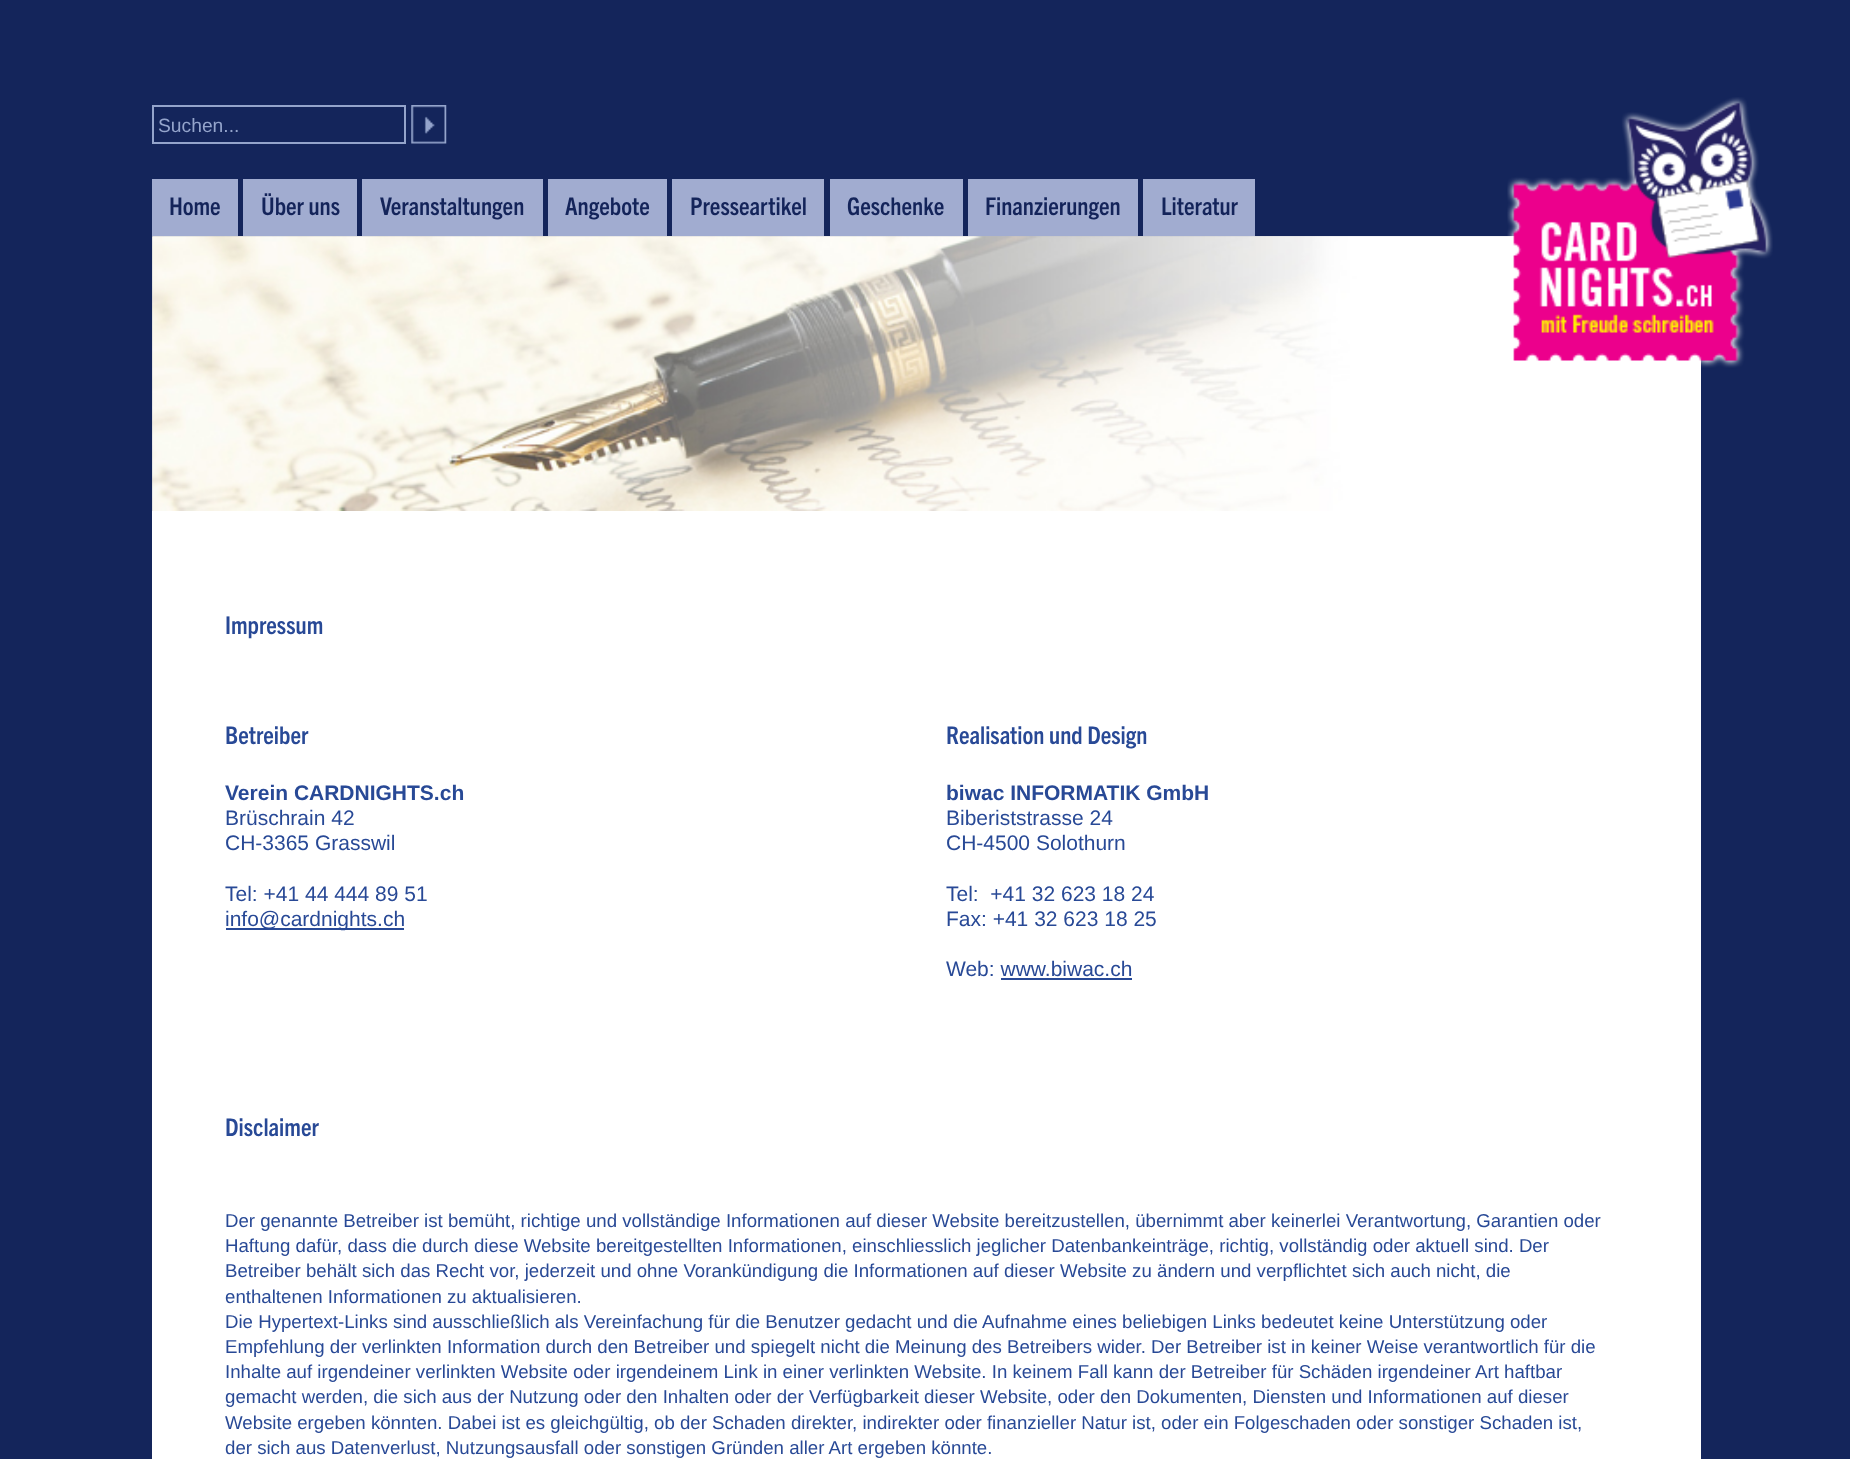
<!DOCTYPE html>
<meta charset="utf-8">
<style>body { margin: 0 } canvas { display: block }</style>
<canvas id="canvas" width="1850" height="1459"></canvas>
<script type="module">
  const canvas = document.getElementById("canvas");
  const g = canvas.getContext("2d");
  g.miterLimit = 4;
  g.fontKerning = "normal";
  function drawText(s, x, y, [font, color]) {
    g.font = font;
    g.fillStyle = color;
    g.fillText(s, x, y);
  }
  function fillBox(x, y, w, h, color) {
    g.fillStyle = color;
    g.fillRect(x, y, w, h);
  }
  async function drawPicture(src, x, y, w, h) {
    const img = new Image();
    img.src = src;
    await img.decode();
    g.drawImage(img, x, y, w, h);
  }

  const s1 = ["19.25px Liberation Sans", "#94A4CB"];
  const s2 = ["bold 24.5px 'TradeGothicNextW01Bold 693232'", "#14245A"];
  const s3 = ["bold 24.5px 'TradeGothicNextW01Bold 693232'", "#284996"];
  const s4 = ["bold 21px Liberation Sans", "#284996"];
  const s5 = ["21px Liberation Sans", "#284996"];
  const s6 = ["18.67px Liberation Sans", "#284996"];

  fillBox(0, 0, 1850, 1459, "#14255B");
  g.strokeStyle = "#94A4CB";
  g.lineWidth = 2;
  g.strokeRect(153, 106, 252, 37);
  drawText("Suchen...", 158, 132, s1);
  await drawPicture("pic1.png", 411, 105, 36, 39);
  await drawPicture("pic3.png", 152, 236, 1363, 275);
  await drawPicture("pic4.png", 152, 236, 1549, 275);
  await drawPicture("pic2.png", 1507, 97, 266, 271);
  fillBox(152, 179, 86, 57, "#A1ACD0");
  drawText("Home", 169, 215, s2);
  fillBox(243, 179, 114, 57, "#A1ACD0");
  drawText("Über uns", 261, 215, s2);
  fillBox(362, 179, 181, 57, "#A1ACD0");
  drawText("Veranstaltungen", 380, 215, s2);
  fillBox(548, 179, 119, 57, "#A1ACD0");
  drawText("Angebote", 565, 215, s2);
  fillBox(672, 179, 152, 57, "#A1ACD0");
  drawText("Presseartikel", 690, 215, s2);
  fillBox(830, 179, 133, 57, "#A1ACD0");
  drawText("Geschenke", 847, 215, s2);
  fillBox(968, 179, 170, 57, "#A1ACD0");
  drawText("Finanzierungen", 985, 215, s2);
  fillBox(1143, 179, 112, 57, "#A1ACD0");
  drawText("Literatur", 1161, 215, s2);
  fillBox(152, 511, 1549, 948, "#FFFFFF");
  drawText("Impressum", 225, 634, s3);
  drawText("Betreiber", 225, 744, s3);
  drawText("Verein CARDNIGHTS.ch", 225, 800, s4);
  drawText("Brüschrain 42", 225, 825, s5);
  drawText("CH-3365 Grasswil", 225, 850, s5);
  drawText("Tel: +41 44 444 89 51", 225, 901, s5);
  fillBox(226, 928, 178, 2, "#284996");
  drawText("info@cardnights.ch", 225, 926, s5);
  drawText("Realisation und Design", 946, 744, s3);
  drawText("biwac INFORMATIK GmbH", 946, 800, s4);
  drawText("Biberiststrasse 24", 946, 825, s5);
  drawText("CH-4500 Solothurn", 946, 850, s5);
  drawText("Tel:  +41 32 623 18 24", 946, 901, s5);
  drawText("Fax: +41 32 623 18 25", 946, 926, s5);
  drawText("Web: www.biwac.ch", 946, 976, s5);
  fillBox(1001, 978, 131, 2, "#284996");
  drawText("Disclaimer", 225, 1136, s3);
  drawText("Der genannte Betreiber ist bemüht, richtige und vollständige Informationen auf dieser Website bereitzustellen, übernimmt aber keinerlei Verantwortung, Garantien oder", 225, 1227, s6);
  drawText("Haftung dafür, dass die durch diese Website bereitgestellten Informationen, einschliesslich jeglicher Datenbankeinträge, richtig, vollständig oder aktuell sind. Der", 225, 1252, s6);
  drawText("Betreiber behält sich das Recht vor, jederzeit und ohne Vorankündigung die Informationen auf dieser Website zu ändern und verpflichtet sich auch nicht, die", 225, 1277, s6);
  drawText("enthaltenen Informationen zu aktualisieren.", 225, 1303, s6);
  drawText("Die Hypertext-Links sind ausschließlich als Vereinfachung für die Benutzer gedacht und die Aufnahme eines beliebigen Links bedeutet keine Unterstützung oder", 225, 1328, s6);
  drawText("Empfehlung der verlinkten Information durch den Betreiber und spiegelt nicht die Meinung des Betreibers wider. Der Betreiber ist in keiner Weise verantwortlich für die", 225, 1353, s6);
  drawText("Inhalte auf irgendeiner verlinkten Website oder irgendeinem Link in einer verlinkten Website. In keinem Fall kann der Betreiber für Schäden irgendeiner Art haftbar", 225, 1378, s6);
  drawText("gemacht werden, die sich aus der Nutzung oder den Inhalten oder der Verfügbarkeit dieser Website, oder den Dokumenten, Diensten und Informationen auf dieser", 225, 1403, s6);
  drawText("Website ergeben könnten. Dabei ist es gleichgültig, ob der Schaden direkter, indirekter oder finanzieller Natur ist, oder ein Folgeschaden oder sonstiger Schaden ist,", 225, 1429, s6);
  drawText("der sich aus Datenverlust, Nutzungsausfall oder sonstigen Gründen aller Art ergeben könnte.", 225, 1454, s6);
</script>
